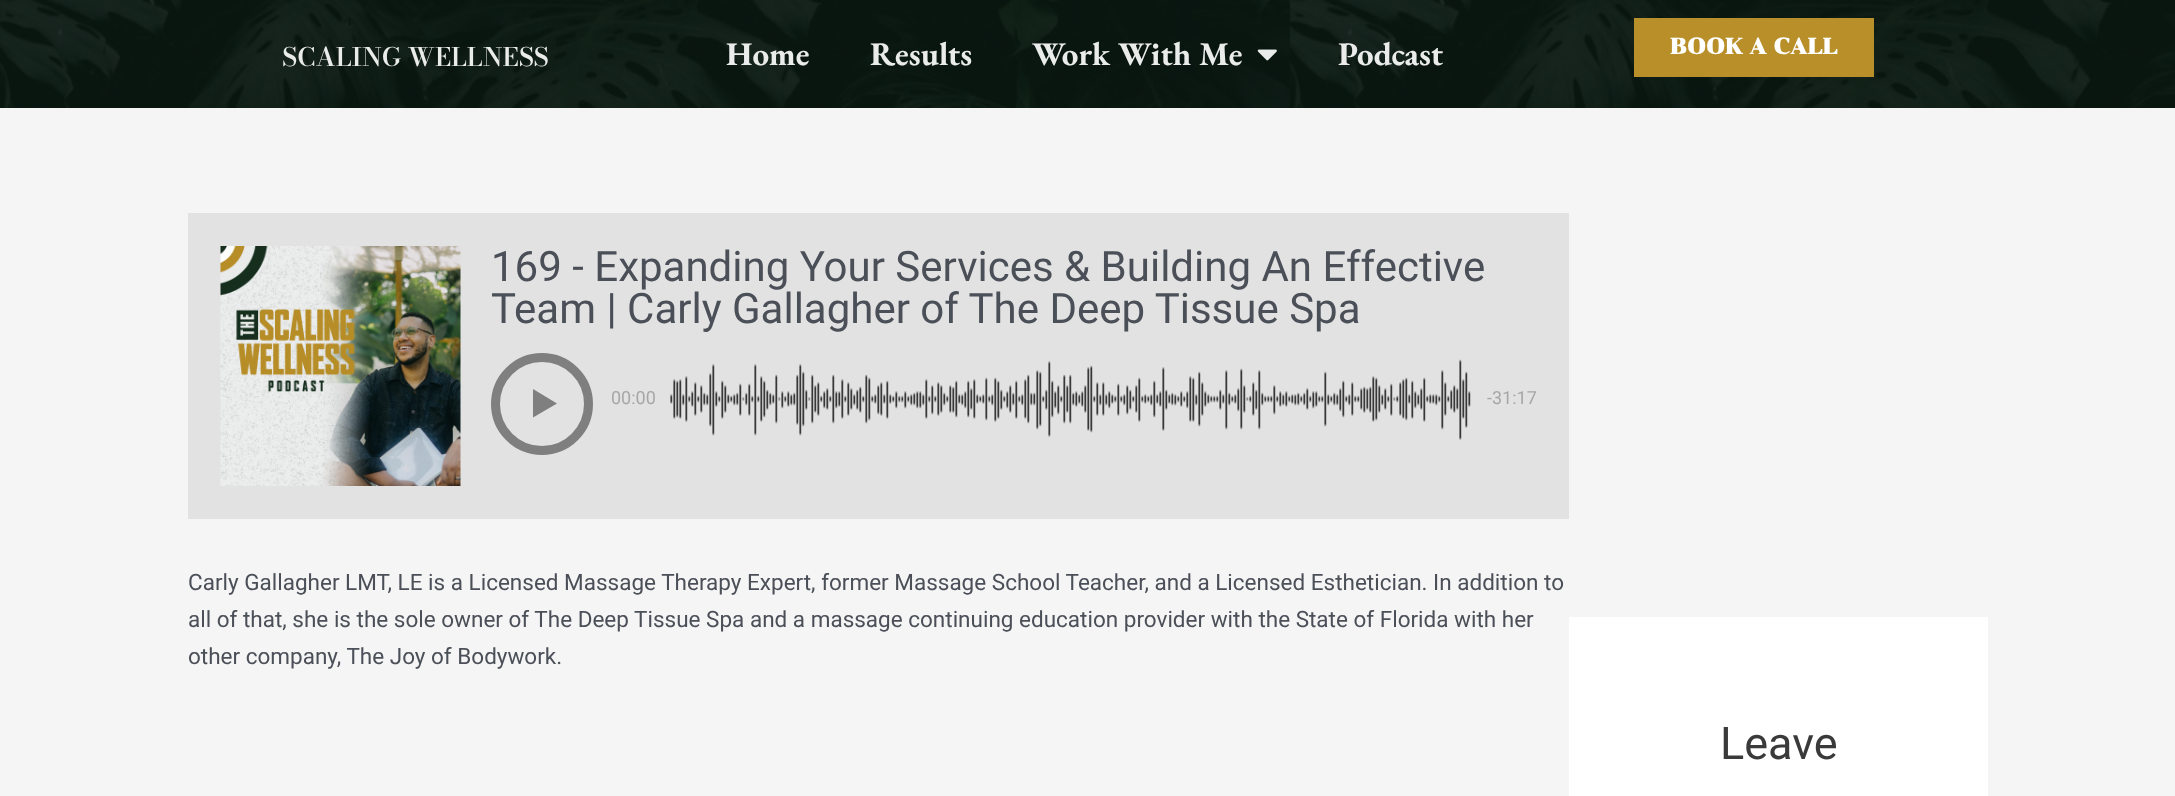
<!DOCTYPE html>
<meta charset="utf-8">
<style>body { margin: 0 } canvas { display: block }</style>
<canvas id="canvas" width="2175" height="796"></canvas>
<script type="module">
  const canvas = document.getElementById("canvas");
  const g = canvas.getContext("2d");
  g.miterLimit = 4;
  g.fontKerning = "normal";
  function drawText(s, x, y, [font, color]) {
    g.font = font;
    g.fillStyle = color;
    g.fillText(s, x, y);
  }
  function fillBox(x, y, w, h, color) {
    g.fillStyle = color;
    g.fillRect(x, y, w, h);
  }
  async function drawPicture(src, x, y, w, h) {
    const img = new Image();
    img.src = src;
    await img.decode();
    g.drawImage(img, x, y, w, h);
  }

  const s1 = ["600 25.5px Bodoni Moda", "#EAECEB"];
  const s2 = ["bold 33px EB Garamond", "#EAECEB"];
  const s3 = ["bold 22.5px Chonburi", "#FFFFFF"];
  const s4 = ["42px Roboto", "#4B4F58"];
  const s5 = ["18px Roboto", "#A7A7A7"];
  const s6 = ["22.5px Roboto", "#4B4F58"];
  const s7 = ["45px Roboto", "#3A3A3A"];

  fillBox(0, 0, 2175, 796, "#F5F5F5");
  await drawPicture("pic1.png", 0, 0, 2175, 108);
  drawText("SCALING WELLNESS", 282, 66, s1);
  drawText("Home", 726, 65, s2);
  drawText("Results", 870, 65, s2);
  drawText("Work With Me", 1032, 65, s2);
  await drawPicture("pic2.png", 1257, 49, 20, 12);
  drawText("Podcast", 1338, 65, s2);
  fillBox(1634, 18, 240, 59, "#B88F28");
  drawText("BOOK A CALL", 1670, 54, s3);
  fillBox(188, 213, 1381, 306, "#E2E2E2");
  await drawPicture("pic3.png", 220, 246, 241, 240);
  drawText("169 - Expanding Your Services & Building An Effective", 491, 281, s4);
  drawText("Team | Carly Gallagher of The Deep Tissue Spa", 491, 323, s4);
  g.beginPath();
  g.arc(542, 404, 46.5, 0, Math.PI * 2);
  g.strokeStyle = "#7F7F7F";
  g.lineWidth = 9;
  g.stroke();
  g.fillStyle = "#7F7F7F";
  g.beginPath();
  g.moveTo(533, 389);
  g.lineTo(557, 403.5);
  g.lineTo(533, 417.5);
  g.closePath();
  g.fill();
  drawText("00:00", 611, 404, s5);
  await drawPicture("pic4.png", 670, 359, 801, 81);
  drawText("-31:17", 1487, 404, s5);
  drawText("Carly Gallagher LMT, LE is a Licensed Massage Therapy Expert, former Massage School Teacher, and a Licensed Esthetician. In addition to", 188, 590, s6);
  drawText("all of that, she is the sole owner of The Deep Tissue Spa and a massage continuing education provider with the State of Florida with her", 188, 627, s6);
  drawText("other company, The Joy of Bodywork.", 188, 664, s6);
  fillBox(1569, 617, 419, 179, "#FFFFFF");
  drawText("Leave", 1720, 759, s7);
</script>
